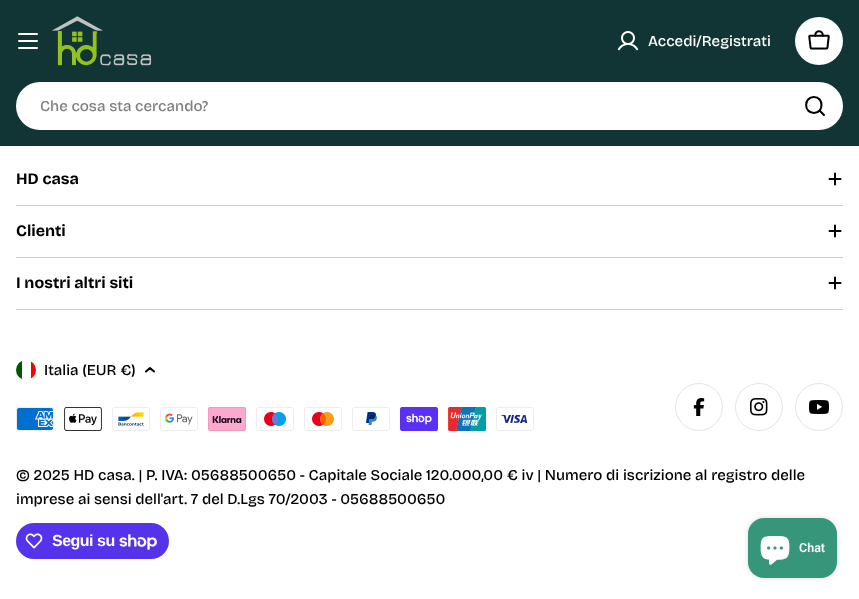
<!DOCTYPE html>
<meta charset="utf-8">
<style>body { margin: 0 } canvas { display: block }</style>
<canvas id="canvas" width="859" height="599"></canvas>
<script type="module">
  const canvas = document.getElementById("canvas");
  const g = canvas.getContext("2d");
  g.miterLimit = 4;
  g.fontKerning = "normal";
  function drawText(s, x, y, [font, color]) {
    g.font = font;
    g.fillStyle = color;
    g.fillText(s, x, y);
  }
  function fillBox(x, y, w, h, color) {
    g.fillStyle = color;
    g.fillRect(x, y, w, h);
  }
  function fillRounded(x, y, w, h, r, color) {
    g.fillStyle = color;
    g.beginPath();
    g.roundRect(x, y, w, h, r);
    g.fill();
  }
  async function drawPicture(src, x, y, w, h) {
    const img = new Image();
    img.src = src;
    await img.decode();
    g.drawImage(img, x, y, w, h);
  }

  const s1 = ["500 15px Bricolage Grotesque", "#FFFFFF"];
  const s2 = ["500 15px Bricolage Grotesque", "#808080"];
  const s3 = ["bold 16px Bricolage Grotesque", "#000000"];
  const s4 = ["500 15px Bricolage Grotesque", "#000000"];
  const s5 = ["bold 16px Liberation Sans", "#FFFFFF"];
  const s6 = ["600 12.5px Roboto", "#FFFFFF"];

  fillBox(0, 0, 859, 599, "#FFFFFF");
  fillBox(0, 0, 859, 146, "#113534");
  fillRounded(18, 40, 20, 2, 1, "#FFFFFF");
  fillRounded(18, 33, 20, 2, 1, "#FFFFFF");
  fillRounded(18, 47, 20, 2, 1, "#FFFFFF");
  await drawPicture("pic1.png", 52, 16, 100, 50);
  await drawPicture("pic2.png", 617, 31, 22, 20);
  drawText("Accedi/Registrati", 648, 46, s1);
  g.beginPath();
  g.arc(819, 41, 24, 0, Math.PI * 2);
  g.fill();
  await drawPicture("pic3.png", 808, 30, 22, 20);
  fillRounded(16, 82, 827, 48, 24, "#FFFFFF");
  drawText("Che cosa sta cercando?", 40, 111, s2);
  g.beginPath();
  g.moveTo(814, 113);
  g.bezierCurveTo(824, 113, 824, 97, 814, 97);
  g.bezierCurveTo(803.5, 97, 803.5, 113, 814, 113);
  g.closePath();
  g.moveTo(819.5, 110.5);
  g.lineTo(824, 115);
  g.strokeStyle = "#000000";
  g.lineWidth = 2;
  g.lineCap = "round";
  g.lineJoin = "round";
  g.stroke();
  fillBox(16, 205, 827, 1, "#CCCCCC");
  drawText("HD casa", 16, 184, s3);
  g.beginPath();
  g.moveTo(829.5, 179);
  g.lineTo(840.5, 179);
  g.moveTo(835, 173.5);
  g.lineTo(835, 184.5);
  g.stroke();
  fillBox(16, 257, 827, 1, "#CCCCCC");
  drawText("Clienti", 16, 236, s3);
  g.beginPath();
  g.moveTo(829.5, 231);
  g.lineTo(840.5, 231);
  g.moveTo(835, 225.5);
  g.lineTo(835, 236.5);
  g.stroke();
  fillBox(16, 309, 827, 1, "#CCCCCC");
  drawText("I nostri altri siti", 16, 288, s3);
  g.beginPath();
  g.moveTo(829.5, 283);
  g.lineTo(840.5, 283);
  g.moveTo(835, 277.5);
  g.lineTo(835, 288.5);
  g.stroke();
  g.save();
  g.beginPath();
  g.roundRect(16, 360, 20, 20, 10);
  g.clip();
  fillBox(16, 360, 6, 20, "#005700");
  fillBox(31, 360, 5, 20, "#FC0000");
  g.restore();
  drawText("Italia (EUR €)", 44, 375, s4);
  g.beginPath();
  g.moveTo(146, 371.5);
  g.lineTo(150, 368);
  g.lineTo(154, 371.5);
  g.stroke();
  await drawPicture("pic4.png", 16, 407, 38, 24);
  await drawPicture("pic5.png", 64, 407, 38, 24);
  await drawPicture("pic6.png", 112, 407, 38, 24);
  await drawPicture("pic7.png", 160, 407, 38, 24);
  await drawPicture("pic8.png", 208, 407, 38, 24);
  await drawPicture("pic9.png", 256, 407, 38, 24);
  await drawPicture("pic10.png", 304, 407, 38, 24);
  await drawPicture("pic11.png", 352, 407, 38, 24);
  await drawPicture("pic12.png", 400, 407, 38, 24);
  await drawPicture("pic13.png", 448, 407, 38, 24);
  await drawPicture("pic14.png", 496, 407, 38, 24);
  g.beginPath();
  g.arc(699, 407, 23.5, 0, Math.PI * 2);
  g.strokeStyle = "#E5E5E5";
  g.lineWidth = 1;
  g.stroke();
  await drawPicture("pic15.png", 693, 398, 12, 18);
  g.beginPath();
  g.arc(759, 407, 23.5, 0, Math.PI * 2);
  g.stroke();
  await drawPicture("pic16.png", 750, 398, 18, 18);
  g.beginPath();
  g.arc(819, 407, 23.5, 0, Math.PI * 2);
  g.stroke();
  await drawPicture("pic17.png", 809, 400, 20, 14);
  drawText("© 2025 HD casa. | P. IVA: 05688500650 - Capitale Sociale 120.000,00 € iv | Numero di iscrizione al registro delle", 16, 480, s4);
  drawText("imprese ai sensi dell'art. 7 del D.Lgs 70/2003 - 05688500650", 16, 504, s4);
  fillRounded(16, 523, 153, 36, 18, "#5433EB");
  await drawPicture("pic18.png", 25, 533, 18, 16);
  g.letterSpacing = "-0.5px";
  drawText("Segui su", 52, 546, s5);
  await drawPicture("pic19.png", 119, 534, 38, 16);
  g.fillStyle = "rgba(0, 0, 0, 0.15)";
  g.filter = "blur(2.5px)";
  g.beginPath();
  g.roundRect(748, 518, 89, 60, 16);
  g.fill();
  g.filter = "none";
  fillRounded(748, 518, 89, 60, 16, "#359679");
  await drawPicture("pic20.png", 760, 536, 30, 29);
  g.letterSpacing = "0px";
  drawText("Chat", 799, 552, s6);
</script>
